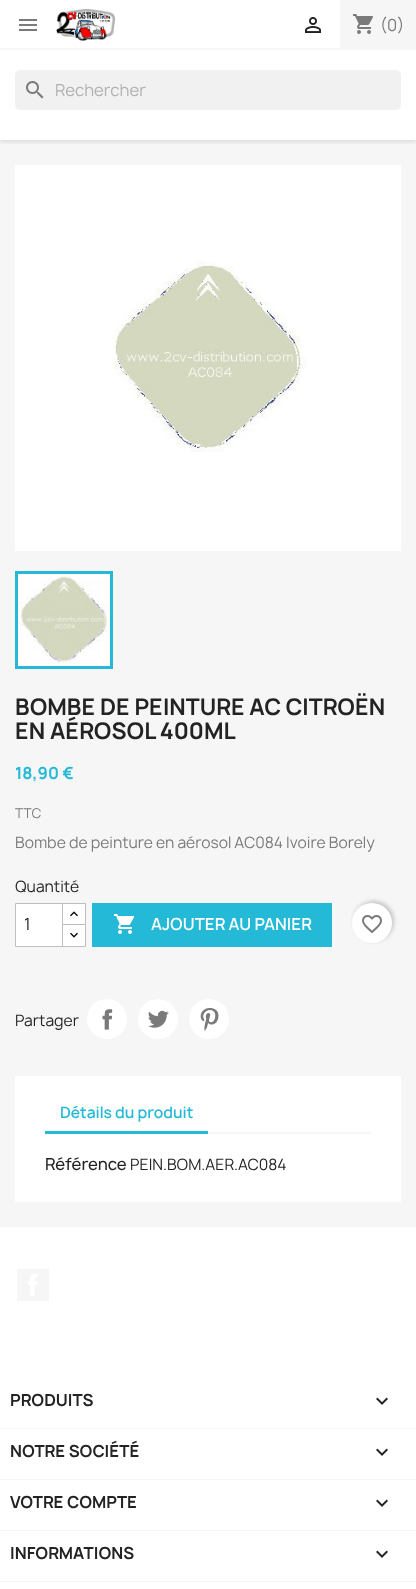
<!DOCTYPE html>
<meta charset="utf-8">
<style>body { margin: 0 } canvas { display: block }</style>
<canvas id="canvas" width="416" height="1589"></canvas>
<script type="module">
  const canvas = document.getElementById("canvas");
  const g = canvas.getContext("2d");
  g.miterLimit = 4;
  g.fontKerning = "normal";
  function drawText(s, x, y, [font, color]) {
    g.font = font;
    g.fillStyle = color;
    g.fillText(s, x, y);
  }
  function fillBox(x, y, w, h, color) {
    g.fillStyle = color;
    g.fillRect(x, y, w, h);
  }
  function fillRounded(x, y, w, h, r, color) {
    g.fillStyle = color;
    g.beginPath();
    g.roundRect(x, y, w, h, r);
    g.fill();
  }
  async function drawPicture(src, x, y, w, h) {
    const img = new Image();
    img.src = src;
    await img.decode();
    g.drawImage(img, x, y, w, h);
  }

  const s1 = ["16px Manrope", "#7A7A7A"];
  const s2 = ["16px Manrope", "#B1B1B1"];
  const s3 = ["bold 22px Manrope", "#232323"];
  const s4 = ["bold 16px Manrope", "#24B9D7"];
  const s5 = ["13px Manrope", "#7A7A7A"];
  const s6 = ["15px Manrope", "#7A7A7A"];
  const s7 = ["15px Manrope", "#232323"];
  const s8 = ["16px Manrope", "#232323"];
  const s9 = ["600 16px Manrope", "#FFFFFF"];
  const s10 = ["600 15px Manrope", "#24B9D7"];
  const s11 = ["500 16px Manrope", "#232323"];
  const s12 = ["bold 16px Manrope", "#232323"];

  fillBox(0, 0, 416, 1589, "#FFFFFF");
  fillBox(0, 140, 416, 1087, "#F6F6F6");
  g.save();
  g.beginPath();
  g.rect(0, 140, 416, 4);
  g.clip();
  g.fillStyle = "rgba(0, 0, 0, 0.11)";
  g.filter = "blur(2.5px)";
  g.beginPath();
  g.rect(0, 2, 416, 140);
  g.fill();
  g.filter = "none";
  g.restore();
  fillBox(0, 48, 416, 2, "#F6F6F6");
  await drawPicture("pic1.png", 19, 19, 18, 12);
  await drawPicture("pic2.png", 56, 9, 59, 32);
  await drawPicture("pic3.png", 305, 17, 16, 16);
  fillBox(340, 0, 76, 48, "#F6F6F6");
  await drawPicture("pic4.png", 353, 14, 20, 20);
  drawText("(0)", 380, 31, s1);
  fillRounded(15, 70, 386, 40, 5, "#F1F1F1");
  await drawPicture("pic5.png", 26, 81, 18, 18);
  drawText("Rechercher", 55, 96, s2);
  fillBox(15, 165, 386, 386, "#FFFFFF");
  await drawPicture("pic6.png", 111, 261, 196, 191);
  g.strokeStyle = "#24B9D7";
  g.lineWidth = 3;
  g.strokeRect(16.5, 572.5, 95, 95);
  await drawPicture("pic7.png", 18, 574, 92, 92);
  drawText("BOMBE DE PEINTURE AC CITROËN", 15, 715, s3);
  drawText("EN AÉROSOL 400ML", 15, 739, s3);
  drawText("18,90 €", 15, 779, s4);
  drawText("TTC", 15, 818, s5);
  drawText("Bombe de peinture en aérosol AC084 Ivoire Borely", 15, 848, s6);
  drawText("Quantité", 15, 892, s7);
  fillBox(63, 904, 22, 20, "#FFFFFF");
  g.strokeStyle = "#BFBFBF";
  g.lineWidth = 1;
  g.strokeRect(62.5, 903.5, 23, 22);
  g.beginPath();
  g.rect(62.5, 924.5, 23, 22);
  g.fill();
  g.stroke();
  g.beginPath();
  g.rect(15.5, 903.5, 47, 43);
  g.fill();
  g.stroke();
  drawText("1", 24, 930, s8);
  await drawPicture("pic8.png", 70, 911, 8, 6);
  await drawPicture("pic9.png", 70, 932, 8, 6);
  fillBox(92, 903, 240, 44, "#24B9D7");
  await drawPicture("pic10.png", 114, 914, 20, 20);
  drawText("AJOUTER AU PANIER", 151, 930, s9);
  g.fillStyle = "rgba(0, 0, 0, 0.2)";
  g.filter = "blur(2px)";
  g.beginPath();
  g.roundRect(354, 901, 40, 40, 20);
  g.fill();
  g.filter = "none";
  g.fillStyle = "#FFFFFF";
  g.beginPath();
  g.arc(372, 923, 20, 0, Math.PI * 2);
  g.fill();
  await drawPicture("pic11.png", 362, 915, 20, 19);
  drawText("Partager", 15, 1026, s7);
  g.fillStyle = "#FFFFFF";
  g.beginPath();
  g.arc(107, 1019, 20, 0, Math.PI * 2);
  g.fill();
  await drawPicture("pic12.png", 102, 1009, 11, 21);
  g.beginPath();
  g.arc(158, 1019, 20, 0, Math.PI * 2);
  g.fill();
  await drawPicture("pic13.png", 148, 1010, 21, 18);
  g.beginPath();
  g.arc(209, 1019, 20, 0, Math.PI * 2);
  g.fill();
  await drawPicture("pic14.png", 200, 1008, 19, 23);
  fillBox(15, 1076, 386, 126, "#FFFFFF");
  fillBox(208, 1132, 163, 2, "#F6F6F6");
  fillBox(45, 1131, 163, 3, "#24B9D7");
  drawText("Détails du produit", 60, 1118, s10);
  drawText("Référence", 45, 1170, s11);
  drawText("PEIN.BOM.AER.AC084", 130, 1170, s7);
  fillBox(17, 1269, 32, 32, "#F6F6F6");
  await drawPicture("pic15.png", 28, 1274, 10, 23);
  fillBox(0, 1428, 416, 1, "#F6F6F6");
  drawText("PRODUITS", 10, 1406, s12);
  await drawPicture("pic16.png", 376, 1397, 12, 8);
  fillBox(0, 1479, 416, 1, "#F6F6F6");
  drawText("NOTRE SOCIÉTÉ", 10, 1457, s12);
  await drawPicture("pic16.png", 376, 1448, 12, 8);
  fillBox(0, 1530, 416, 1, "#F6F6F6");
  drawText("VOTRE COMPTE", 10, 1508, s12);
  await drawPicture("pic16.png", 376, 1499, 12, 8);
  fillBox(0, 1581, 416, 1, "#F6F6F6");
  drawText("INFORMATIONS", 10, 1559, s12);
  await drawPicture("pic16.png", 376, 1550, 12, 8);
</script>
